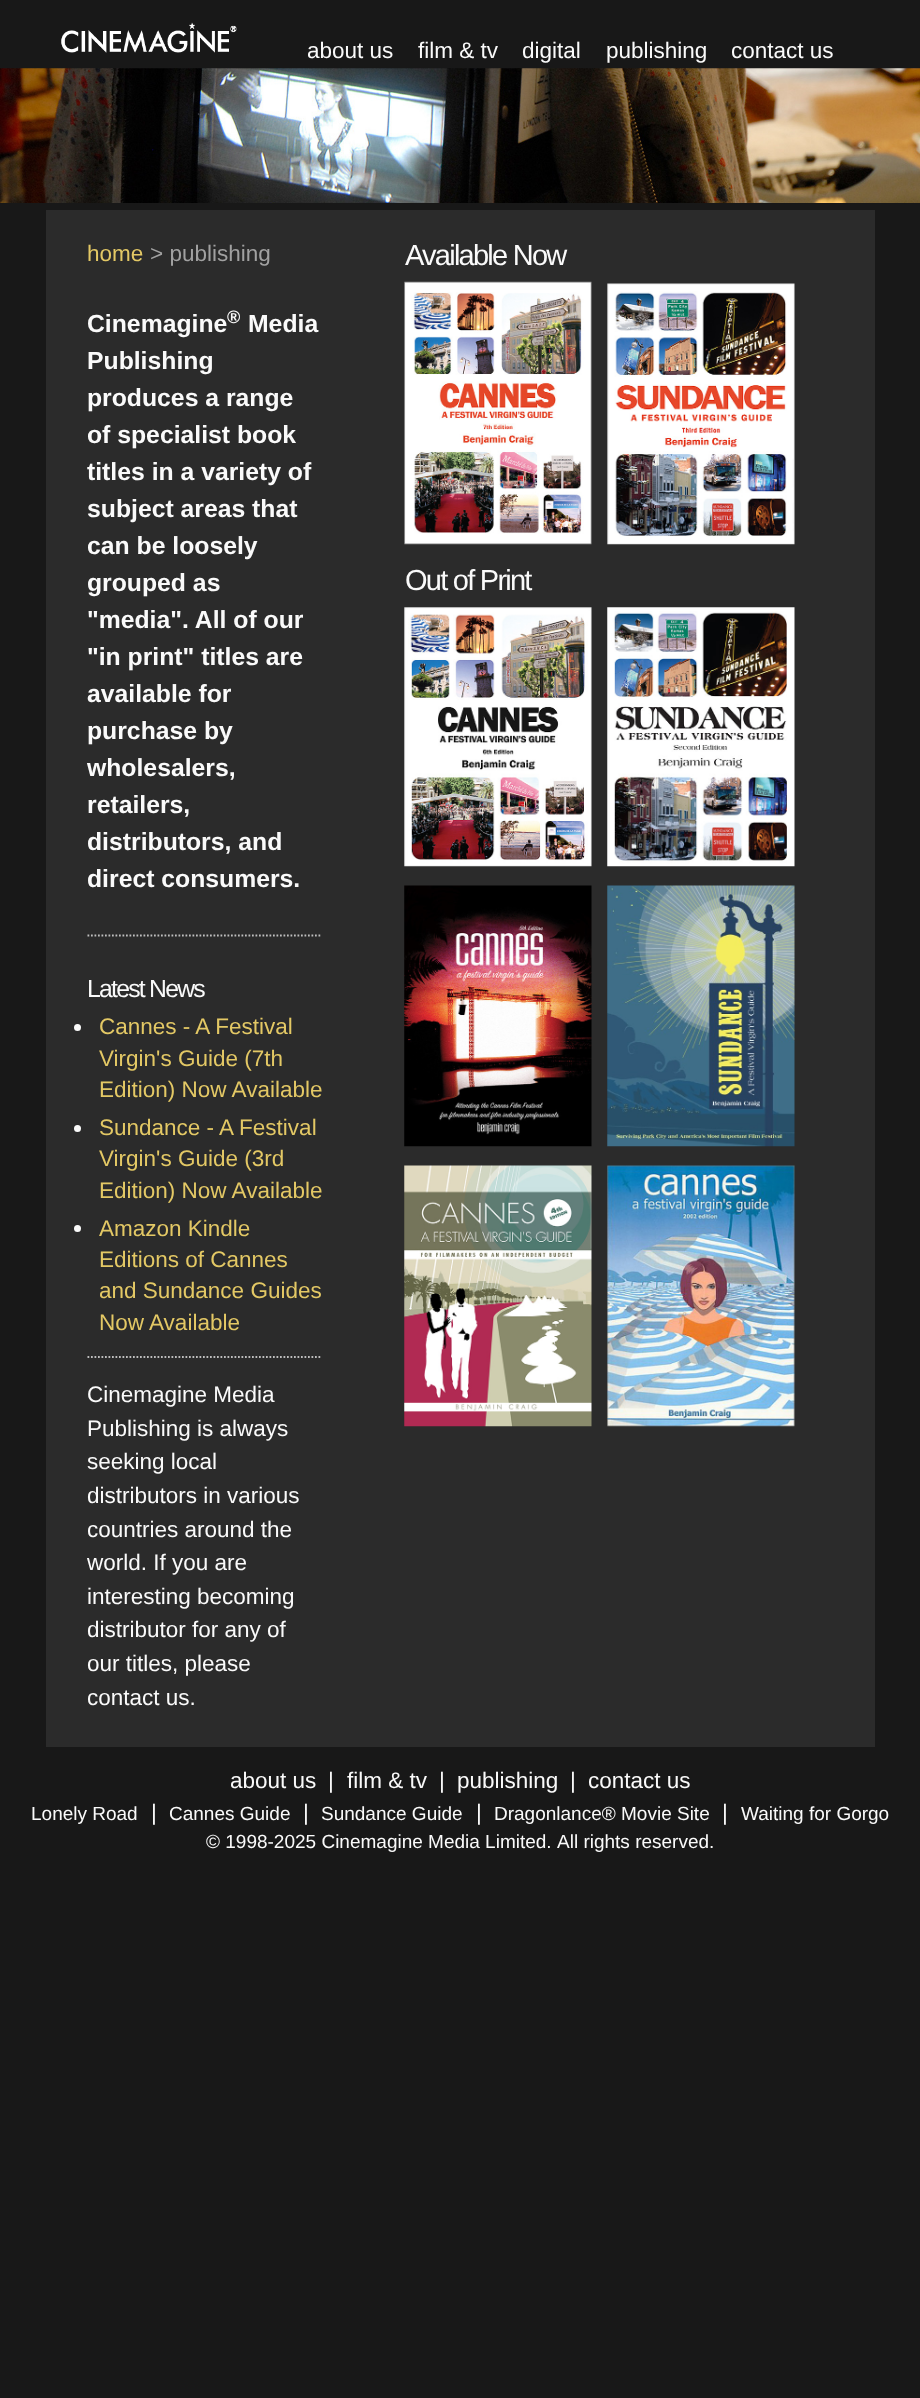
<!DOCTYPE html>
<meta charset="utf-8">
<style>body { margin: 0 } canvas { display: block }</style>
<canvas id="canvas" width="920" height="2398"></canvas>
<script type="module">
  const canvas = document.getElementById("canvas");
  const g = canvas.getContext("2d");
  g.miterLimit = 4;
  g.fontKerning = "normal";
  function drawText(s, x, y, [font, color]) {
    g.font = font;
    g.fillStyle = color;
    g.fillText(s, x, y);
  }
  function fillBox(x, y, w, h, color) {
    g.fillStyle = color;
    g.fillRect(x, y, w, h);
  }
  async function drawPicture(src, x, y, w, h) {
    const img = new Image();
    img.src = src;
    await img.decode();
    g.drawImage(img, x, y, w, h);
  }

  const s1 = ["22.5px Liberation Sans", "#FAFAFA"];
  const s2 = ["22.5px Liberation Sans", "#E3C865"];
  const s3 = ["22.5px Liberation Sans", "#A1A1A1"];
  const s4 = ["bold 24.75px Liberation Sans", "#FAFAFA"];
  const s5 = ["bold 18px Liberation Sans", "#FAFAFA"];
  const s6 = ["24.75px Liberation Sans", "#FAFAFA"];
  const s7 = ["29px Liberation Sans", "#FAFAFA"];
  const s8 = ["19px Liberation Sans", "#FAFAFA"];

  fillBox(0, 0, 920, 2398, "#181818");
  await drawPicture("pic1.png", 61, 22, 176, 31);
  drawText("about us", 307, 58, s1);
  drawText("film & tv", 418, 58, s1);
  drawText("digital", 522, 58, s1);
  drawText("publishing", 606, 58, s1);
  drawText("contact us", 731, 58, s1);
  await drawPicture("pic2.png", 0, 68, 920, 135);
  fillBox(46, 210, 829, 1537, "#2B2B2B");
  drawText("home", 87, 261, s2);
  drawText("> publishing", 150, 261, s3);
  drawText("Cinemagine", 87, 332, s4);
  drawText("®", 227, 323, s5);
  drawText("Media", 248, 332, s4);
  drawText("Publishing", 87, 369, s4);
  drawText("produces a range", 87, 406, s4);
  drawText("of specialist book", 87, 443, s4);
  drawText("titles in a variety of", 87, 480, s4);
  drawText("subject areas that", 87, 517, s4);
  drawText("can be loosely", 87, 554, s4);
  drawText("grouped as", 87, 591, s4);
  drawText("\"media\". All of our", 87, 628, s4);
  drawText("\"in print\" titles are", 87, 665, s4);
  drawText("available for", 87, 702, s4);
  drawText("purchase by", 87, 739, s4);
  drawText("wholesalers,", 87, 776, s4);
  drawText("retailers,", 87, 813, s4);
  drawText("distributors, and", 87, 850, s4);
  drawText("direct consumers.", 87, 887, s4);
  g.beginPath();
  g.moveTo(87.5, 935.5);
  g.lineTo(322, 935.5);
  g.strokeStyle = "#BEBEBE";
  g.lineWidth = 1.8;
  g.setLineDash([1.75, 1.75]);
  g.stroke();
  g.beginPath();
  g.moveTo(87.5, 1357);
  g.lineTo(322, 1357);
  g.stroke();
  g.letterSpacing = "-1.75px";
  drawText("Latest News", 87, 997, s6);
  g.beginPath();
  g.arc(77.5, 1027.5, 3.5, 0, Math.PI * 2);
  g.fill();
  g.letterSpacing = "0px";
  drawText("Cannes - A Festival", 99, 1034, s2);
  drawText("Virgin's Guide (7th", 99, 1066, s2);
  drawText("Edition) Now Available", 99, 1097, s2);
  g.fillStyle = "#FAFAFA";
  g.beginPath();
  g.arc(77.5, 1128.5, 3.5, 0, Math.PI * 2);
  g.fill();
  drawText("Sundance - A Festival", 99, 1135, s2);
  drawText("Virgin's Guide (3rd", 99, 1166, s2);
  drawText("Edition) Now Available", 99, 1198, s2);
  g.fillStyle = "#FAFAFA";
  g.beginPath();
  g.arc(77.5, 1228.5, 3.5, 0, Math.PI * 2);
  g.fill();
  drawText("Amazon Kindle", 99, 1236, s2);
  drawText("Editions of Cannes", 99, 1267, s2);
  drawText("and Sundance Guides", 99, 1298, s2);
  drawText("Now Available", 99, 1330, s2);
  drawText("Cinemagine Media", 87, 1402, s1);
  drawText("Publishing is always", 87, 1436, s1);
  drawText("seeking local", 87, 1469, s1);
  drawText("distributors in various", 87, 1503, s1);
  drawText("countries around the", 87, 1537, s1);
  drawText("world. If you are", 87, 1570, s1);
  drawText("interesting becoming", 87, 1604, s1);
  drawText("distributor for any of", 87, 1637, s1);
  drawText("our titles, please", 87, 1671, s1);
  drawText("contact us.", 87, 1705, s1);
  g.letterSpacing = "-1.75px";
  drawText("Available Now", 405, 265, s7);
  await drawPicture("pic3.png", 404, 281, 188, 264);
  await drawPicture("pic4.png", 607, 283, 188, 262);
  drawText("Out of Print", 405, 590, s7);
  await drawPicture("pic5.png", 404, 607, 188, 260);
  await drawPicture("pic6.png", 607, 607, 188, 260);
  await drawPicture("pic7.png", 404, 885, 188, 262);
  await drawPicture("pic8.png", 607, 885, 188, 262);
  await drawPicture("pic9.png", 404, 1165, 188, 262);
  await drawPicture("pic10.png", 607, 1165, 188, 262);
  g.letterSpacing = "0px";
  drawText("about us", 230, 1788, s1);
  drawText("|", 328, 1788, s1);
  drawText("film & tv", 347, 1788, s1);
  drawText("|", 439, 1788, s1);
  drawText("publishing", 457, 1788, s1);
  drawText("|", 570, 1788, s1);
  drawText("contact us", 588, 1788, s1);
  drawText("Lonely Road", 31, 1820, s8);
  drawText("|", 151, 1820, s1);
  drawText("Cannes Guide", 169, 1820, s8);
  drawText("|", 303, 1820, s1);
  drawText("Sundance Guide", 321, 1820, s8);
  drawText("|", 476, 1820, s1);
  drawText("Dragonlance® Movie Site", 494, 1820, s8);
  drawText("|", 722, 1820, s1);
  drawText("Waiting for Gorgo", 741, 1820, s8);
  drawText("© 1998-2025 Cinemagine Media Limited.", 206, 1848, s8);
  drawText("All rights reserved.", 557, 1848, s8);
</script>
